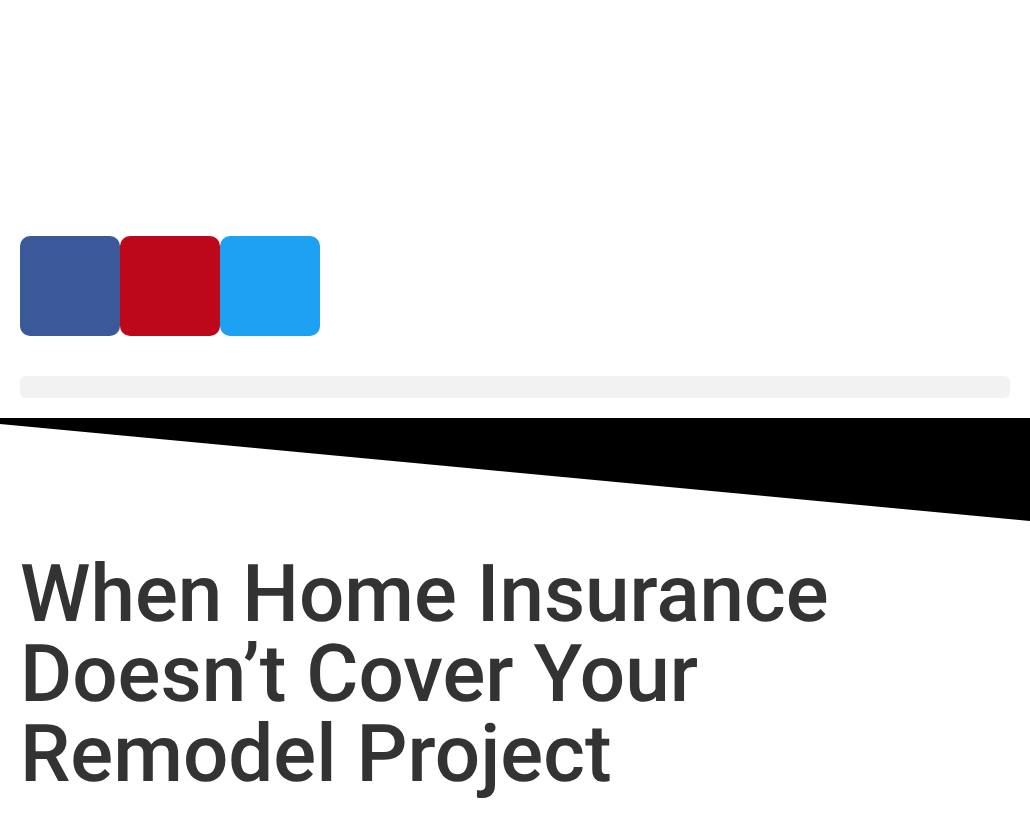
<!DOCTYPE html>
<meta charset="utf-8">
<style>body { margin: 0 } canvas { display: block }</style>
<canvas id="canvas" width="1030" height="828"></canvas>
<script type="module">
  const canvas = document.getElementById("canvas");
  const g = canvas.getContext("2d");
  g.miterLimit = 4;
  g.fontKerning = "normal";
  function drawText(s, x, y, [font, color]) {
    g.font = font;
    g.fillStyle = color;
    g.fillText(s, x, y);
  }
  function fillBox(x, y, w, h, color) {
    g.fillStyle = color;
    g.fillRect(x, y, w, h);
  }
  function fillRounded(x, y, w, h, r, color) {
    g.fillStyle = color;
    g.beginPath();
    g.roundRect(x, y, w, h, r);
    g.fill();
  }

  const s1 = ["500 80px Roboto", "#333333"];

  fillBox(0, 0, 1030, 828, "#FFFFFF");
  fillRounded(20, 236, 100, 100, 10, "#3B5998");
  fillRounded(120, 236, 100, 100, 10, "#BD081C");
  fillRounded(220, 236, 100, 100, 10, "#1DA1F2");
  fillRounded(20, 376, 990, 22, 6, "#F2F2F2");
  g.fillStyle = "#000000";
  g.beginPath();
  g.moveTo(0, 424);
  g.lineTo(0, 418);
  g.lineTo(1030, 418);
  g.lineTo(1030, 521);
  g.closePath();
  g.fill();
  drawText("When Home Insurance", 20, 621, s1);
  drawText("Doesn’t Cover Your", 20, 701, s1);
  drawText("Remodel Project", 20, 781, s1);
</script>
